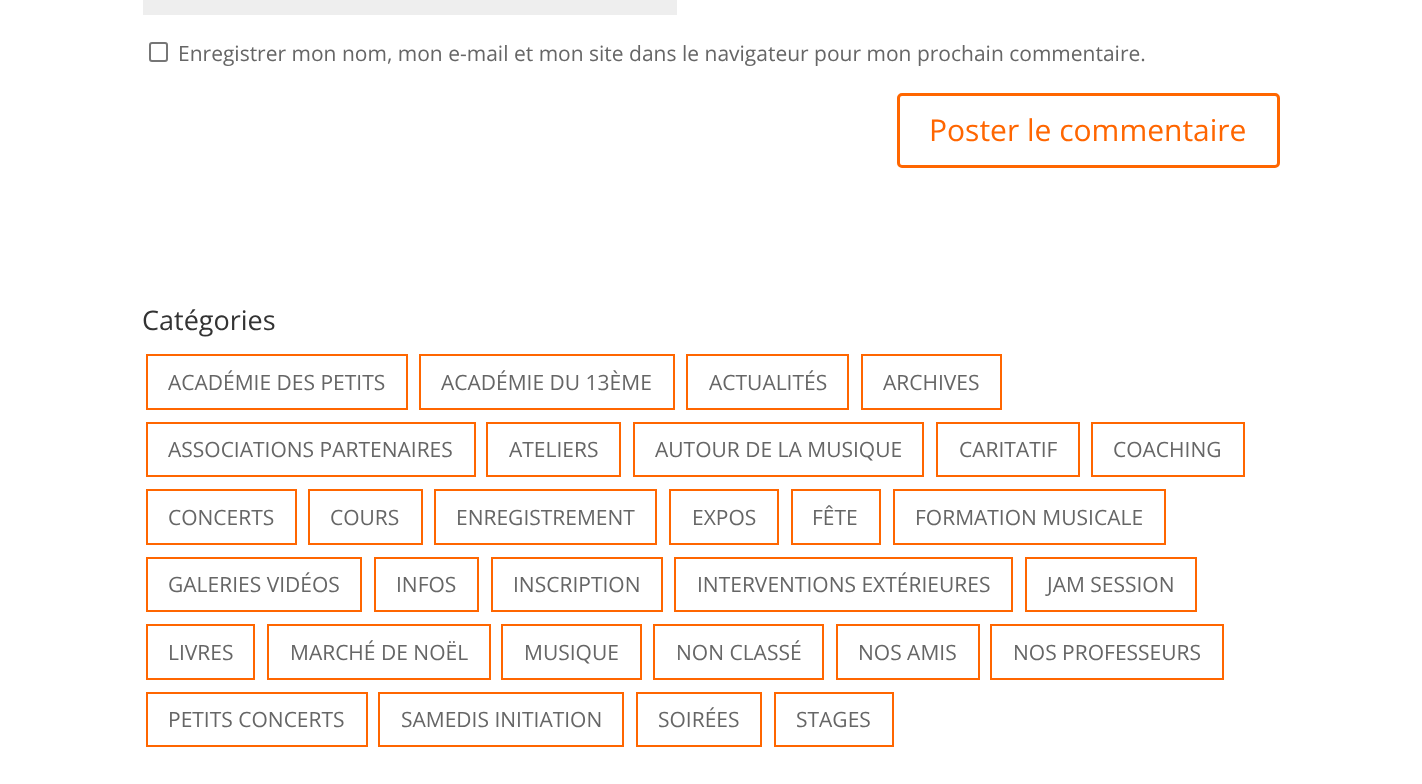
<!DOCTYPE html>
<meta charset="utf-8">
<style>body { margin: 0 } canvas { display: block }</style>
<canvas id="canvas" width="1422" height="784"></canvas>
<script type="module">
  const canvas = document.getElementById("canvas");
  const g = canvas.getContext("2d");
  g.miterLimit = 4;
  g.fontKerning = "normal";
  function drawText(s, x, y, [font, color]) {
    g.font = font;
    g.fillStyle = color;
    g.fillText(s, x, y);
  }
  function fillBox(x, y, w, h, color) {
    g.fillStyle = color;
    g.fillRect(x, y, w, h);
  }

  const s1 = ["21px Open Sans", "#666666"];
  const s2 = ["30px Open Sans", "#FF6600"];
  const s3 = ["27px Open Sans", "#333333"];

  fillBox(0, 0, 1422, 784, "#FFFFFF");
  fillBox(143, 0, 534, 15, "#EEEEEE");
  g.beginPath();
  g.roundRect(150, 43, 17, 18, 2);
  g.strokeStyle = "#767676";
  g.lineWidth = 2;
  g.stroke();
  drawText("Enregistrer mon nom, mon e-mail et mon site dans le navigateur pour mon prochain commentaire.", 178, 61, s1);
  g.beginPath();
  g.roundRect(898.5, 94.5, 380, 72, 3.5);
  g.strokeStyle = "#FF6600";
  g.lineWidth = 3;
  g.stroke();
  drawText("Poster le commentaire", 929, 141, s2);
  drawText("Catégories", 142, 330, s3);
  g.lineWidth = 2;
  g.strokeRect(147, 355, 260, 54);
  drawText("ACADÉMIE DES PETITS", 168, 390, s1);
  g.strokeRect(420, 355, 254, 54);
  drawText("ACADÉMIE DU 13ÈME", 441, 390, s1);
  g.strokeRect(687, 355, 161, 54);
  drawText("ACTUALITÉS", 709, 390, s1);
  g.strokeRect(862, 355, 139, 54);
  drawText("ARCHIVES", 883, 390, s1);
  g.strokeRect(147, 423, 328, 53);
  drawText("ASSOCIATIONS PARTENAIRES", 168, 457, s1);
  g.strokeRect(487, 423, 133, 53);
  drawText("ATELIERS", 509, 457, s1);
  g.strokeRect(634, 423, 289, 53);
  drawText("AUTOUR DE LA MUSIQUE", 655, 457, s1);
  g.strokeRect(937, 423, 142, 53);
  drawText("CARITATIF", 959, 457, s1);
  g.strokeRect(1092, 423, 152, 53);
  drawText("COACHING", 1113, 457, s1);
  g.strokeRect(147, 490, 149, 54);
  drawText("CONCERTS", 168, 525, s1);
  g.strokeRect(309, 490, 113, 54);
  drawText("COURS", 330, 525, s1);
  g.strokeRect(435, 490, 221, 54);
  drawText("ENREGISTREMENT", 456, 525, s1);
  g.strokeRect(670, 490, 108, 54);
  drawText("EXPOS", 692, 525, s1);
  g.strokeRect(792, 490, 88, 54);
  drawText("FÊTE", 812, 525, s1);
  g.strokeRect(894, 490, 271, 54);
  drawText("FORMATION MUSICALE", 915, 525, s1);
  g.strokeRect(147, 558, 214, 53);
  drawText("GALERIES VIDÉOS", 168, 592, s1);
  g.strokeRect(375, 558, 103, 53);
  drawText("INFOS", 396, 592, s1);
  g.strokeRect(492, 558, 170, 53);
  drawText("INSCRIPTION", 513, 592, s1);
  g.strokeRect(675, 558, 337, 53);
  drawText("INTERVENTIONS EXTÉRIEURES", 697, 592, s1);
  g.strokeRect(1026, 558, 170, 53);
  drawText("JAM SESSION", 1047, 592, s1);
  g.strokeRect(147, 625, 107, 54);
  drawText("LIVRES", 168, 660, s1);
  g.strokeRect(268, 625, 222, 54);
  drawText("MARCHÉ DE NOËL", 290, 660, s1);
  g.strokeRect(502, 625, 139, 54);
  drawText("MUSIQUE", 524, 660, s1);
  g.strokeRect(654, 625, 169, 54);
  drawText("NON CLASSÉ", 676, 660, s1);
  g.strokeRect(837, 625, 142, 54);
  drawText("NOS AMIS", 858, 660, s1);
  g.strokeRect(991, 625, 232, 54);
  drawText("NOS PROFESSEURS", 1013, 660, s1);
  g.strokeRect(147, 693, 220, 53);
  drawText("PETITS CONCERTS", 168, 727, s1);
  g.strokeRect(379, 693, 244, 53);
  drawText("SAMEDIS INITIATION", 401, 727, s1);
  g.strokeRect(637, 693, 124, 53);
  drawText("SOIRÉES", 658, 727, s1);
  g.strokeRect(775, 693, 118, 53);
  drawText("STAGES", 796, 727, s1);
</script>
